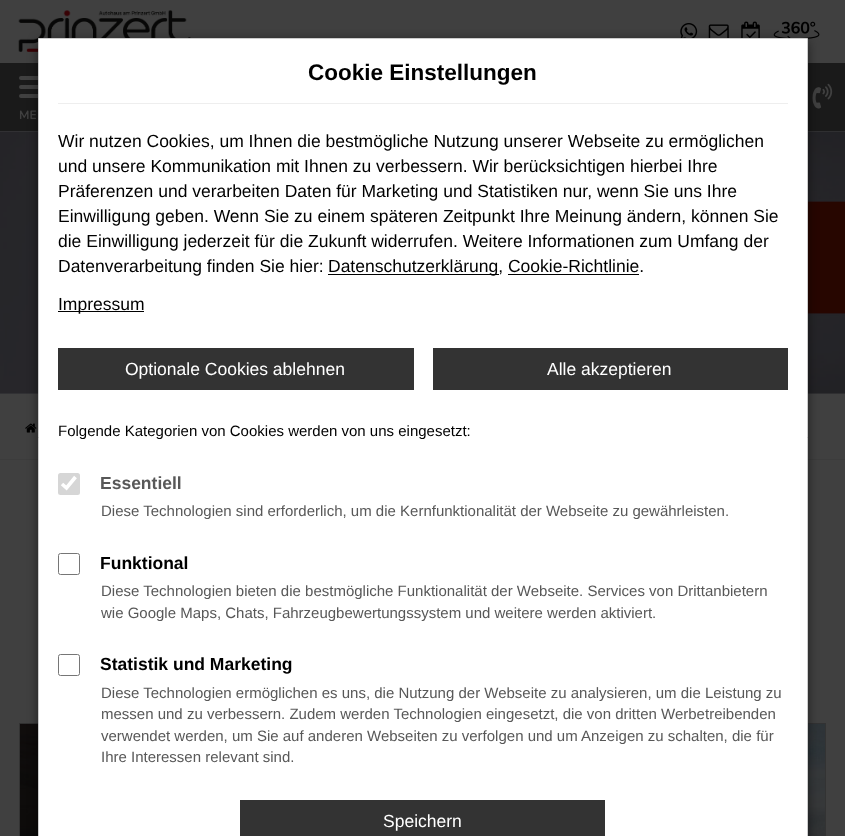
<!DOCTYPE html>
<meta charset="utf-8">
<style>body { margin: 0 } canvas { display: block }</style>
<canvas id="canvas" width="845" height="836"></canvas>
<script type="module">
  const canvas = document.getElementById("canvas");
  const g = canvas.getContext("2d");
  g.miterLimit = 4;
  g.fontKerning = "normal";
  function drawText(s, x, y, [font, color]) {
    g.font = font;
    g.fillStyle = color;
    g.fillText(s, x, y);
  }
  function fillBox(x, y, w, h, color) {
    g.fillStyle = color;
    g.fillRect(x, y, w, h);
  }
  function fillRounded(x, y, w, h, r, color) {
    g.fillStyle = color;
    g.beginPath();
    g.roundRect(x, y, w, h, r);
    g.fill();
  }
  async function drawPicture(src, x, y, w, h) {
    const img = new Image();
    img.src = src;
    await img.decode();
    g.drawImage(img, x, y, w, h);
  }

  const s1 = ["200 12px Nunito", "#404040"];
  const s2 = ["bold 22.5px Liberation Sans", "#000000"];
  const s3 = ["17.5px Liberation Sans", "#000000"];
  const s4 = ["17.5px Liberation Sans", "#FFFFFF"];
  const s5 = ["15px Liberation Sans", "#000000"];
  const s6 = ["bold 17.5px Liberation Sans", "#585858"];
  const s7 = ["15px Liberation Sans", "#585858"];
  const s8 = ["bold 17.5px Liberation Sans", "#000000"];

  fillBox(0, 0, 845, 836, "#404040");
  await drawPicture("pic1.png", 18, 10, 173, 42);
  await drawPicture("pic2.png", 680, 23, 18, 15);
  await drawPicture("pic3.png", 708, 24, 21, 14);
  await drawPicture("pic4.png", 741, 21, 19, 17);
  await drawPicture("pic5.png", 773, 21, 47, 18);
  fillBox(0, 63, 845, 68, "#1A1A1A");
  await drawPicture("pic6.png", 812, 83, 21, 26);
  fillRounded(19, 85, 37, 4, 2, "#404040");
  fillRounded(19, 76, 37, 4, 2, "#404040");
  fillRounded(19, 94, 37, 4, 2, "#404040");
  drawText("ME", 19, 119, s1);
  await drawPicture("pic7.png", 0, 131, 845, 263);
  fillBox(0, 459, 845, 1, "#3C3C3C");
  await drawPicture("pic8.png", 25, 423, 12, 10);
  g.strokeStyle = "#333333";
  g.strokeRect(19.5, 723.5, 806, 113);
  await drawPicture("pic9.png", 20, 723, 805, 113);
  g.fillStyle = "rgba(0, 0, 0, 0.5)";
  g.filter = "blur(5.5px)";
  g.beginPath();
  g.rect(38, 41, 770, 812);
  g.fill();
  g.filter = "none";
  g.fillStyle = "#FFFFFF";
  g.beginPath();
  g.rect(38.5, 38.5, 769, 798);
  g.fill();
  g.strokeStyle = "#CCCCCC";
  g.stroke();
  fillBox(58, 103, 730, 1, "#EEEEEE");
  drawText("Cookie Einstellungen", 308, 80, s2);
  drawText("Wir nutzen Cookies, um Ihnen die bestmögliche Nutzung unserer Webseite zu ermöglichen", 58, 147, s3);
  drawText("und unsere Kommunikation mit Ihnen zu verbessern. Wir berücksichtigen hierbei Ihre", 58, 172, s3);
  drawText("Präferenzen und verarbeiten Daten für Marketing und Statistiken nur, wenn Sie uns Ihre", 58, 197, s3);
  drawText("Einwilligung geben. Wenn Sie zu einem späteren Zeitpunkt Ihre Meinung ändern, können Sie", 58, 222, s3);
  drawText("die Einwilligung jederzeit für die Zukunft widerrufen. Weitere Informationen zum Umfang der", 58, 247, s3);
  drawText("Datenverarbeitung finden Sie hier:", 58, 272, s3);
  fillBox(328, 274, 171, 1, "#000000");
  drawText("Datenschutzerklärung, Cookie-Richtlinie.", 328, 272, s3);
  fillBox(508, 274, 131, 1, "#000000");
  fillBox(58, 311, 86, 1, "#000000");
  drawText("Impressum", 58, 310, s3);
  fillBox(58, 348, 356, 42, "#333333");
  drawText("Optionale Cookies ablehnen", 125, 375, s4);
  fillBox(433, 348, 355, 42, "#333333");
  drawText("Alle akzeptieren", 547, 375, s4);
  drawText("Folgende Kategorien von Cookies werden von uns eingesetzt:", 58, 436, s5);
  fillRounded(58, 473, 22, 22, 2.5, "#D6D6D6");
  g.beginPath();
  g.moveTo(62, 484);
  g.lineTo(66.5, 488);
  g.lineTo(75.5, 477);
  g.strokeStyle = "#FFFFFF";
  g.lineWidth = 3.6;
  g.stroke();
  drawText("Essentiell", 100, 489, s6);
  drawText("Diese Technologien sind erforderlich, um die Kernfunktionalität der Webseite zu gewährleisten.", 101, 516, s7);
  g.beginPath();
  g.roundRect(58.5, 553.5, 21, 21, 2);
  g.strokeStyle = "#767676";
  g.lineWidth = 1;
  g.stroke();
  drawText("Funktional", 100, 569, s8);
  drawText("Diese Technologien bieten die bestmögliche Funktionalität der Webseite. Services von Drittanbietern", 101, 596, s7);
  drawText("wie Google Maps, Chats, Fahrzeugbewertungssystem und weitere werden aktiviert.", 101, 618, s7);
  g.beginPath();
  g.roundRect(58.5, 654.5, 21, 21, 2);
  g.stroke();
  drawText("Statistik und Marketing", 100, 670, s8);
  drawText("Diese Technologien ermöglichen es uns, die Nutzung der Webseite zu analysieren, um die Leistung zu", 101, 698, s7);
  drawText("messen und zu verbessern. Zudem werden Technologien eingesetzt, die von dritten Werbetreibenden", 101, 719, s7);
  drawText("verwendet werden, um Sie auf anderen Webseiten zu verfolgen und um Anzeigen zu schalten, die für", 101, 741, s7);
  drawText("Ihre Interessen relevant sind.", 101, 762, s7);
  fillBox(240, 800, 365, 36, "#333333");
  drawText("Speichern", 383, 827, s4);
</script>
